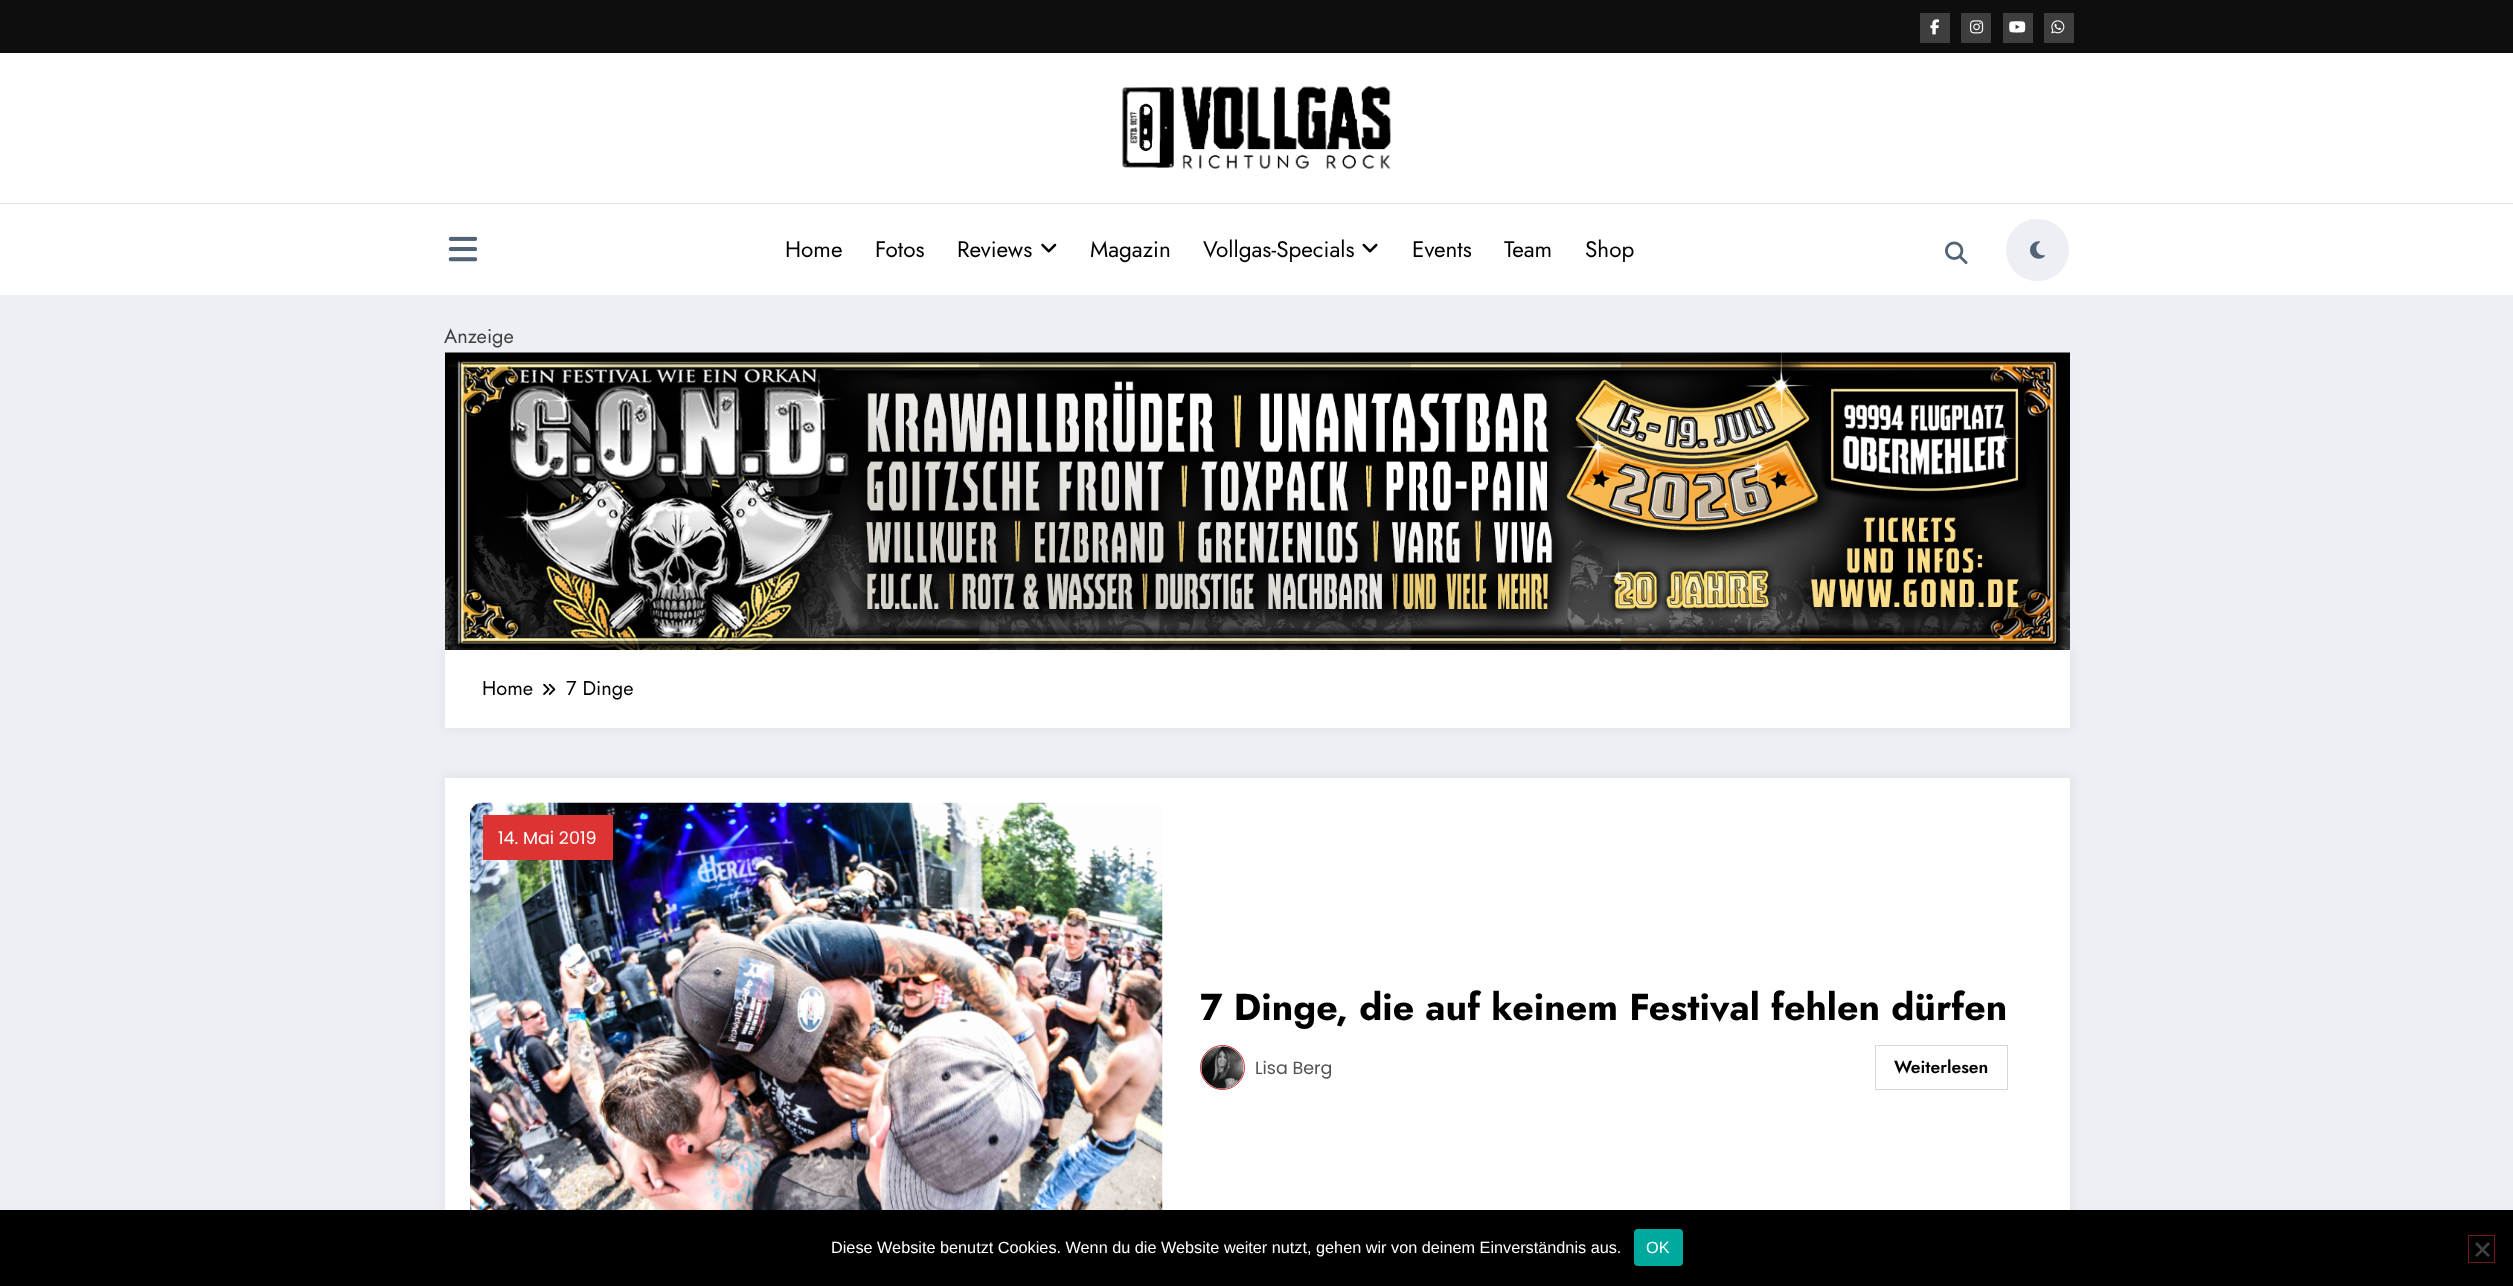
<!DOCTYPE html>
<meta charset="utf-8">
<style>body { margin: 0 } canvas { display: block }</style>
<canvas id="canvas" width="2513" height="1286"></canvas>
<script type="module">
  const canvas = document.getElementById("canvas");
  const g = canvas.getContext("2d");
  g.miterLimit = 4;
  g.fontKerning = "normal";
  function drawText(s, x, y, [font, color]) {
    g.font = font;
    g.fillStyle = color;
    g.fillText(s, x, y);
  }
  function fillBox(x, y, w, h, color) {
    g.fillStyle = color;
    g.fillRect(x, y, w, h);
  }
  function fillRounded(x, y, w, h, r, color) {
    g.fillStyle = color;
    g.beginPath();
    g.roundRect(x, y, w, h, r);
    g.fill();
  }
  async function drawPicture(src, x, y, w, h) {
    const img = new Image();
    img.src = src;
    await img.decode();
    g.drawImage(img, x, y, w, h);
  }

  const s1 = ["22.5px Jost", "#000000"];
  const s2 = ["20px Jost", "#404040"];
  const s3 = ["20px Jost", "#000000"];
  const s4 = ["17.5px Poppins", "#FFFFFF"];
  const s5 = ["bold 37.5px Jost", "#000000"];
  const s6 = ["17.5px Poppins", "#525252"];
  const s7 = ["600 17.5px Jost", "#000000"];
  const s8 = ["16.25px Liberation Sans", "#FFFFFF"];

  fillBox(0, 0, 2513, 1286, "#EEEEF5");
  fillBox(0, 0, 2513, 53, "#0E0E0E");
  fillBox(1920, 13, 30, 30, "#3E3E3E");
  await drawPicture("pic1.png", 1930, 19, 9, 16);
  fillBox(1961, 13, 30, 30, "#3E3E3E");
  await drawPicture("pic2.png", 1970, 20, 14, 14);
  fillBox(2003, 13, 30, 30, "#3E3E3E");
  await drawPicture("pic3.png", 2009, 21, 17, 12);
  fillBox(2044, 13, 30, 30, "#3E3E3E");
  await drawPicture("pic4.png", 2051, 20, 14, 14);
  fillBox(0, 53, 2513, 242, "#FFFFFF");
  await drawPicture("pic5.png", 1122, 85, 269, 84);
  fillBox(0, 203, 2513, 1, "#E1E1E1");
  await drawPicture("pic6.png", 448, 236, 30, 26);
  drawText("Home", 785, 257, s1);
  drawText("Fotos", 875, 257, s1);
  drawText("Reviews", 957, 257, s1);
  await drawPicture("pic7.png", 1041, 243, 16, 10);
  drawText("Magazin", 1090, 257, s1);
  drawText("Vollgas-Specials", 1203, 257, s1);
  await drawPicture("pic8.png", 1362, 243, 16, 10);
  drawText("Events", 1412, 257, s1);
  drawText("Team", 1504, 257, s1);
  drawText("Shop", 1585, 257, s1);
  await drawPicture("pic9.png", 1945, 241, 23, 23);
  fillRounded(2006, 219, 63, 62, 31, "#EEEEF5");
  await drawPicture("pic10.png", 2030, 241, 15, 18);
  drawText("Anzeige", 444, 343, s2);
  await drawPicture("pic11.png", 445, 352, 1625, 298);
  g.fillStyle = "rgba(23, 23, 35, 0.05)";
  g.filter = "blur(5px)";
  g.beginPath();
  g.rect(443, 648, 1630, 82);
  g.fill();
  g.filter = "none";
  fillBox(445, 650, 1625, 78, "#FFFFFF");
  drawText("Home", 482, 695, s3);
  await drawPicture("pic12.png", 543, 683, 13, 12);
  drawText("7 Dinge", 566, 695, s3);
  g.fillStyle = "rgba(23, 23, 35, 0.05)";
  g.filter = "blur(5px)";
  g.beginPath();
  g.rect(443, 775, 1630, 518);
  g.fill();
  g.filter = "none";
  fillBox(445, 778, 1625, 432, "#FFFFFF");
  await drawPicture("pic13.png", 470, 802, 693, 408);
  fillBox(483, 815, 130, 45, "#DD3333");
  drawText("14. Mai 2019", 498, 844, s4);
  drawText("7 Dinge, die auf keinem Festival fehlen dürfen", 1200, 1020, s5);
  g.beginPath();
  g.arc(1222.5, 1067.5, 22, 0, Math.PI * 2);
  g.strokeStyle = "#DD3333";
  g.stroke();
  await drawPicture("pic14.png", 1201, 1046, 43, 43);
  drawText("Lisa Berg", 1255, 1074, s6);
  g.strokeStyle = "#D7D7D7";
  g.strokeRect(1875.5, 1045.5, 132, 44);
  drawText("Weiterlesen", 1894, 1073, s7);
  fillBox(0, 1210, 2513, 76, "#000000");
  drawText("Diese Website benutzt Cookies. Wenn du die Website weiter nutzt, gehen wir von deinem Einverständnis aus.", 831, 1253, s8);
  fillRounded(1634, 1229, 49, 37, 4, "#00A99D");
  drawText("OK", 1646, 1253, s8);
  g.strokeStyle = "#6F1A1A";
  g.strokeRect(2468.5, 1235.5, 26, 27);
  g.fillStyle = "#404040";
  g.beginPath();
  g.moveTo(2488, 1242);
  g.lineTo(2490, 1244);
  g.lineTo(2477, 1257);
  g.lineTo(2475, 1255.5);
  g.closePath();
  g.fill();
  g.beginPath();
  g.moveTo(2475, 1244);
  g.lineTo(2477, 1242);
  g.lineTo(2490, 1255.5);
  g.lineTo(2488, 1257);
  g.closePath();
  g.fill();
</script>
